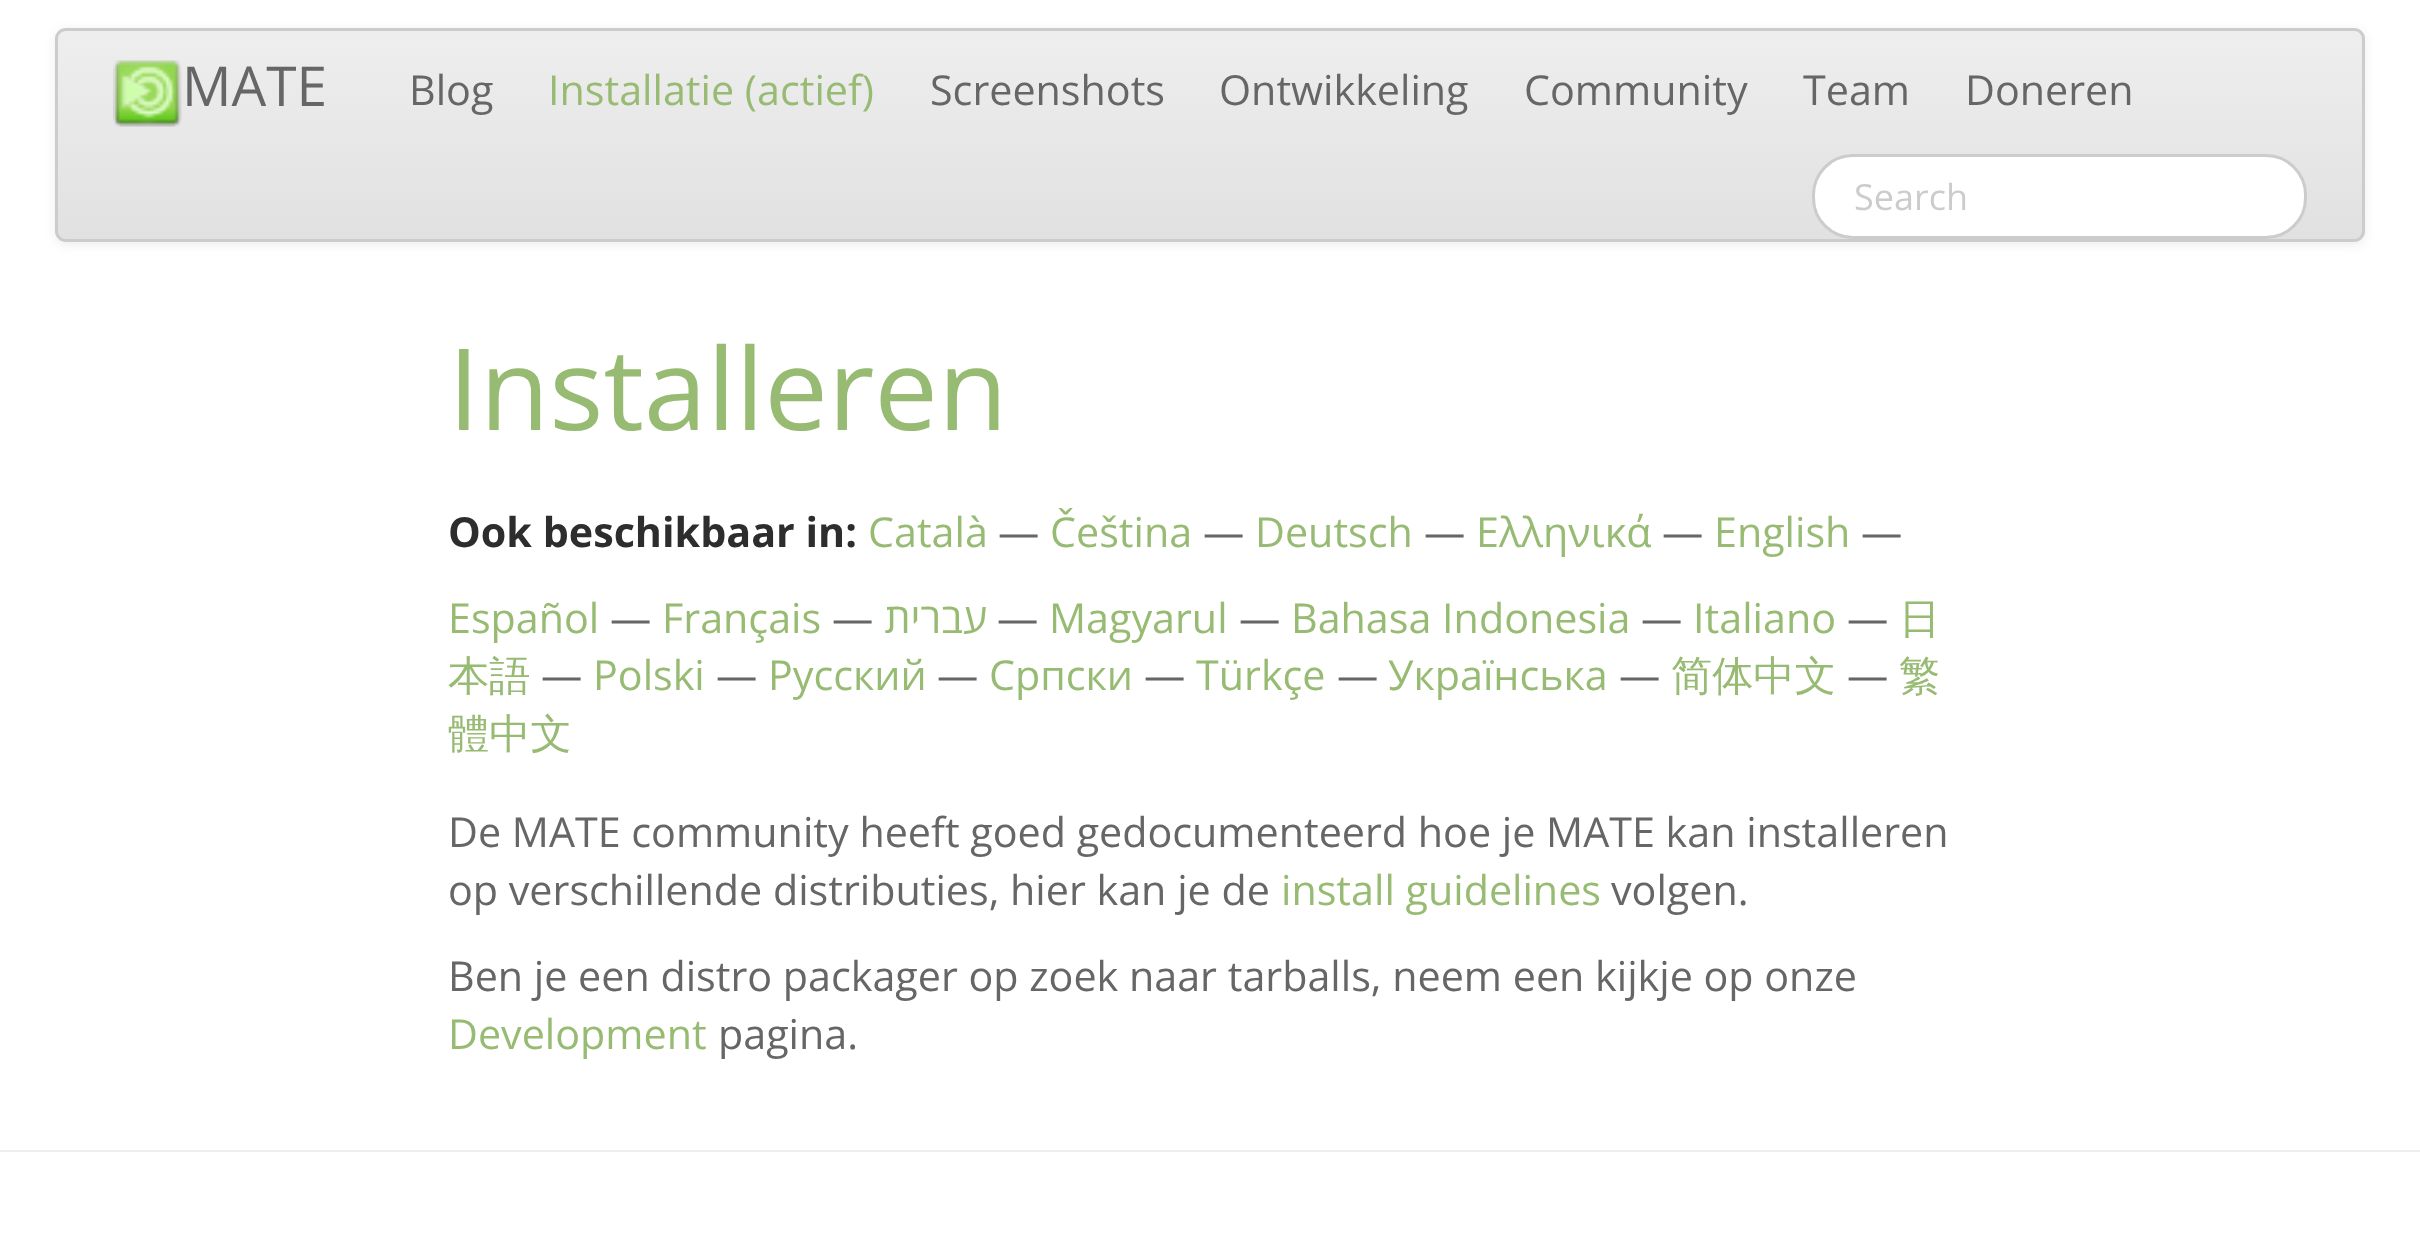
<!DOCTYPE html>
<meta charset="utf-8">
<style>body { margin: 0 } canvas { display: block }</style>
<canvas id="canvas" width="2420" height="1239"></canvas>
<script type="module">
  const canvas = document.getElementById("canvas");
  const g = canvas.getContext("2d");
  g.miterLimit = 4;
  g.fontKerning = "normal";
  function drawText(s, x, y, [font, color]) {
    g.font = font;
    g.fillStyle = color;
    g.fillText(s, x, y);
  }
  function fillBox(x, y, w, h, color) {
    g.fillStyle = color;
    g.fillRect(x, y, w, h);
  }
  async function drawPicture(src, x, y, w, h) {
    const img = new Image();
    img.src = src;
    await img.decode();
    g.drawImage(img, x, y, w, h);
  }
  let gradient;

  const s1 = ["55px Open Sans", "#666666"];
  const s2 = ["41.25px Open Sans", "#666666"];
  const s3 = ["41.25px Open Sans", "#97BB72"];
  const s4 = ["36px Open Sans", "#CCCCCC"];
  const s5 = ["113.5px Open Sans", "#97BB72"];
  const s6 = ["bold 41.25px Open Sans", "#2D2D2D"];
  const s7 = ["500 41.25px WenQuanYi Zen Hei", "#97BB72"];

  fillBox(0, 0, 2420, 1239, "#FFFFFF");
  g.fillStyle = "rgba(0, 0, 0, 0.07)";
  g.filter = "blur(5.5px)";
  g.beginPath();
  g.roundRect(55, 30, 2310, 215, 11);
  g.fill();
  g.filter = "none";
  g.save();
  g.beginPath();
  g.roundRect(55, 28, 2310, 214, 11);
  g.clip();
  gradient = g.createLinearGradient(1210, 30, 1210, 239);
  gradient.addColorStop(0, "#EEEEEE");
  gradient.addColorStop(1, "#E1E1E1");
  g.fillStyle = gradient;
  g.fillRect(55, 30, 2310, 209);
  g.restore();
  g.beginPath();
  g.roundRect(56.5, 29.5, 2307, 211, 9.5);
  g.strokeStyle = "#CCCCCC";
  g.lineWidth = 3;
  g.stroke();
  await drawPicture("pic1.png", 113, 60, 69, 67);
  drawText("MATE", 182, 106, s1);
  drawText("Blog", 409, 105, s2);
  drawText("Installatie (actief)", 548, 105, s3);
  drawText("Screenshots", 930, 105, s2);
  drawText("Ontwikkeling", 1219, 105, s2);
  drawText("Community", 1524, 105, s2);
  drawText("Team", 1803, 105, s2);
  drawText("Doneren", 1965, 105, s2);
  g.fillStyle = "#FFFFFF";
  g.beginPath();
  g.roundRect(1813.5, 155.5, 492, 82, 39.5);
  g.fill();
  g.stroke();
  drawText("Search", 1854, 210, s4);
  drawText("Installeren", 448, 430, s5);
  drawText("Ook beschikbaar in:", 448, 547, s6);
  drawText("Català", 868, 547, s3);
  drawText("—", 998, 547, s2);
  drawText("Čeština", 1050, 547, s3);
  drawText("—", 1203, 547, s2);
  drawText("Deutsch", 1255, 547, s3);
  drawText("—", 1424, 547, s2);
  drawText("Ελληνικά", 1476, 547, s3);
  drawText("—", 1662, 547, s2);
  drawText("English", 1714, 547, s3);
  drawText("—", 1861, 547, s2);
  drawText("Español", 448, 633, s3);
  drawText("—", 610, 633, s2);
  drawText("Français", 662, 633, s3);
  drawText("—", 832, 633, s2);
  g.direction = "rtl";
  drawText("עברית", 987, 633, s3);
  g.direction = "ltr";
  drawText("—", 997, 633, s2);
  drawText("Magyarul", 1049, 633, s3);
  drawText("—", 1239, 633, s2);
  drawText("Bahasa Indonesia", 1291, 633, s3);
  drawText("—", 1641, 633, s2);
  drawText("Italiano", 1693, 633, s3);
  drawText("—", 1847, 633, s2);
  drawText("日", 1899, 633, s7);
  drawText("本語", 448, 690, s7);
  drawText("—", 541, 690, s2);
  drawText("Polski", 593, 690, s3);
  drawText("—", 716, 690, s2);
  drawText("Русский", 768, 690, s3);
  drawText("—", 937, 690, s2);
  drawText("Српски", 989, 690, s3);
  drawText("—", 1144, 690, s2);
  drawText("Türkçe", 1196, 690, s3);
  drawText("—", 1337, 690, s2);
  drawText("Українська", 1388, 690, s3);
  drawText("—", 1619, 690, s2);
  drawText("简体中文", 1671, 690, s7);
  drawText("—", 1847, 690, s2);
  drawText("繁", 1899, 690, s7);
  drawText("體中文", 448, 748, s7);
  drawText("De MATE community heeft goed gedocumenteerd hoe je MATE kan installeren", 448, 847, s2);
  drawText("op verschillende distributies, hier kan je de", 448, 905, s2);
  drawText("install guidelines", 1281, 905, s3);
  drawText("volgen.", 1611, 905, s2);
  drawText("Ben je een distro packager op zoek naar tarballs, neem een kijkje op onze", 448, 991, s2);
  drawText("Development", 448, 1049, s3);
  drawText("pagina.", 718, 1049, s2);
  fillBox(0, 1150, 2420, 2, "#EEEEEE");
</script>
